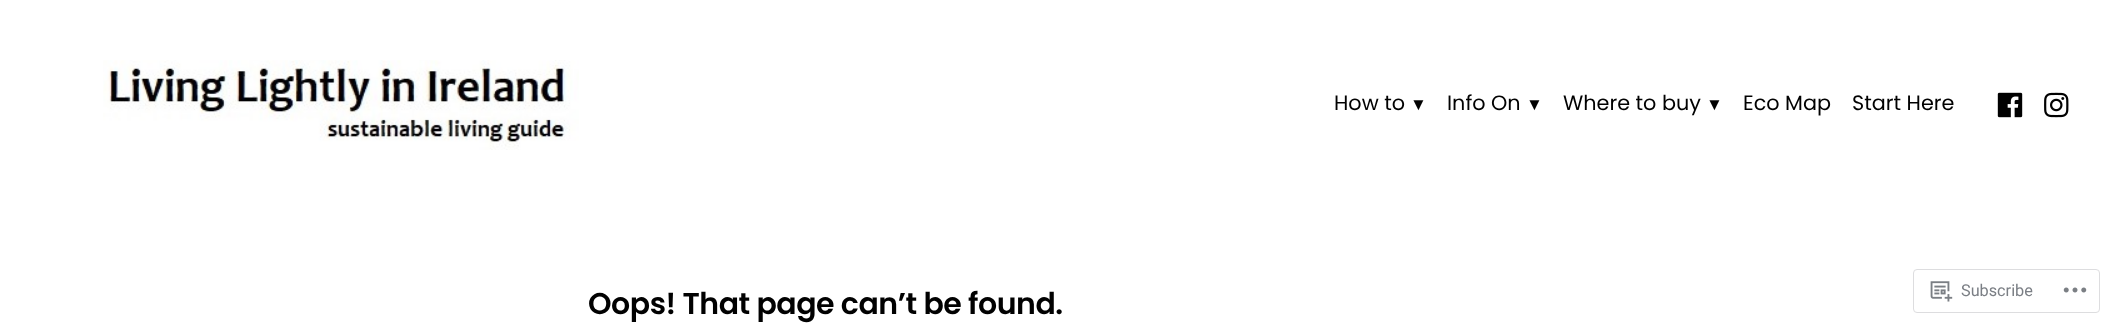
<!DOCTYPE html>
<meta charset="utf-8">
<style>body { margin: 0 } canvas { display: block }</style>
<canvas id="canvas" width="2112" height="325"></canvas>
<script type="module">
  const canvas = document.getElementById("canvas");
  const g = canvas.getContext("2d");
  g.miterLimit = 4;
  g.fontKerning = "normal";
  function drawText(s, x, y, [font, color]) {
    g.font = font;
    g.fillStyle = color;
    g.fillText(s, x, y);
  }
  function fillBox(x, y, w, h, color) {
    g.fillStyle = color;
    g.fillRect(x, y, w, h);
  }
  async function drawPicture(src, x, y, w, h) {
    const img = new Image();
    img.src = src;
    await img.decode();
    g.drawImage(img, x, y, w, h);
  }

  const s1 = ["20.75px Poppins", "#010101"];
  const s2 = ["17px Liberation Sans", "#010101"];
  const s3 = ["600 30px Poppins", "#010101"];
  const s4 = ["16.25px Roboto", "#7B7F85"];

  fillBox(0, 0, 2112, 325, "#FFFFFF");
  await drawPicture("pic1.png", 103, 60, 476, 90);
  drawText("How to", 1334, 110, s1);
  drawText("▼", 1410, 110, s2);
  drawText("Info On", 1447, 110, s1);
  drawText("▼", 1526, 110, s2);
  drawText("Where to buy", 1563, 110, s1);
  drawText("▼", 1706, 110, s2);
  drawText("Eco Map", 1743, 110, s1);
  drawText("Start Here", 1852, 110, s1);
  await drawPicture("pic2.png", 1997, 92, 26, 26);
  await drawPicture("pic3.png", 2044, 92, 25, 26);
  g.letterSpacing = "-0.45px";
  drawText("Oops! That page can’t be found.", 588, 314, s3);
  g.beginPath();
  g.roundRect(1913.5, 269.5, 186, 43, 3.5);
  g.strokeStyle = "#DDDDDF";
  g.stroke();
  await drawPicture("pic4.png", 1930, 281, 23, 21);
  g.letterSpacing = "0px";
  drawText("Subscribe", 1961, 296, s4);
  await drawPicture("pic5.png", 2063, 287, 24, 6);
</script>
